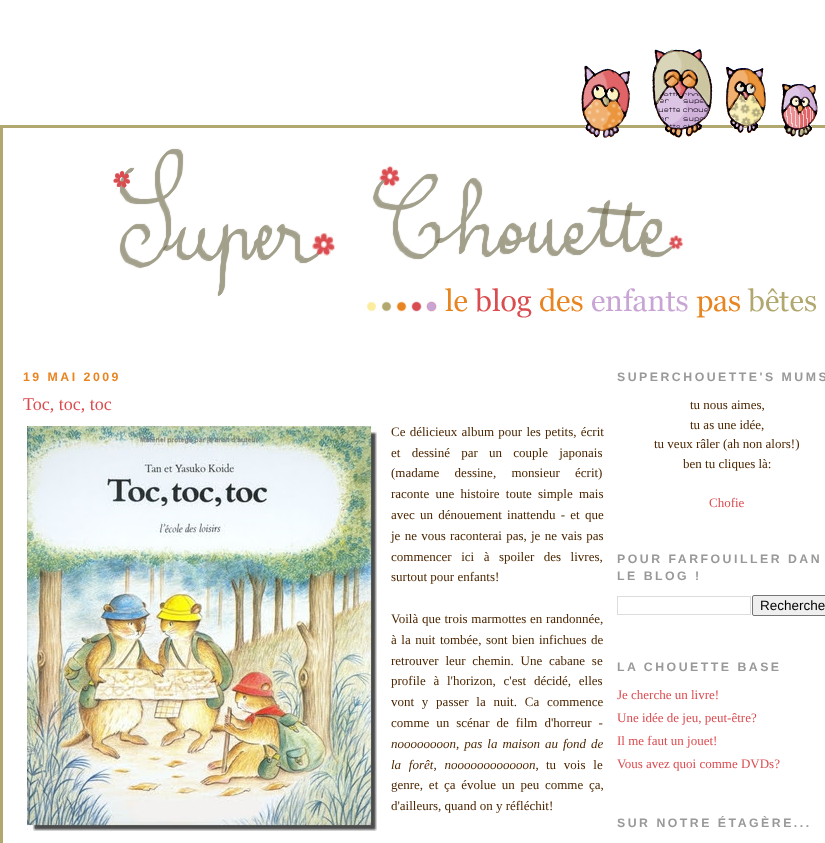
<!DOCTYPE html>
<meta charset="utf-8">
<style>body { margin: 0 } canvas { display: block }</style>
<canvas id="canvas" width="825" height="843"></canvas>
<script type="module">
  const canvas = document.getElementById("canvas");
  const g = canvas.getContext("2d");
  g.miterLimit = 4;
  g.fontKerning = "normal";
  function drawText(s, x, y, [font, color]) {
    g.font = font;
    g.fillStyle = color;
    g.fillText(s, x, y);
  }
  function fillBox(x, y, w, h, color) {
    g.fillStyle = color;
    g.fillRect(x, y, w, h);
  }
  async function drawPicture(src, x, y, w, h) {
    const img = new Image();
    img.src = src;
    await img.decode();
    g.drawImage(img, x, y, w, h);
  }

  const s1 = ["bold 12.3px Liberation Sans", "#E88520"];
  const s2 = ["18px Liberation Serif", "#DB4C50"];
  const s3 = ["13px Liberation Serif", "#4C2600"];
  const s4 = ["italic 13px Liberation Serif", "#4C2600"];
  const s5 = ["bold 12.3px Liberation Sans", "#999999"];
  const s6 = ["13px Liberation Serif", "#DB4C50"];
  const s7 = ["13.5px Liberation Sans", "#000000"];

  fillBox(0, 0, 825, 843, "#FFFFFF");
  await drawPicture("pic1.png", 0, 49, 825, 301);
  fillBox(0, 350, 3, 493, "#B1A86F");
  g.letterSpacing = "2.5px";
  drawText("19 MAI 2009", 23, 381, s1);
  g.letterSpacing = "0px";
  drawText("Toc, toc, toc", 23, 410, s2);
  await drawPicture("pic2.png", 27, 426, 350, 405);
  g.wordSpacing = "1px";
  drawText("Ce délicieux album pour les petits, écrit", 391, 436, s3);
  g.wordSpacing = "8px";
  drawText("et dessiné par un couple japonais", 391, 457, s3);
  g.wordSpacing = "12px";
  drawText("(madame dessine, monsieur écrit)", 391, 477, s3);
  g.wordSpacing = "3px";
  drawText("raconte une histoire toute simple mais", 391, 498, s3);
  g.wordSpacing = "2px";
  drawText("avec un dénouement inattendu - et que", 391, 519, s3);
  g.wordSpacing = "1px";
  drawText("je ne vous raconterai pas, je ne vais pas", 391, 540, s3);
  g.wordSpacing = "6.25px";
  drawText("commencer ici à spoiler des livres,", 391, 561, s3);
  g.wordSpacing = "0px";
  drawText("surtout pour enfants!", 391, 581, s3);
  g.wordSpacing = "0.5px";
  drawText("Voilà que trois marmottes en randonnée,", 391, 623, s3);
  g.wordSpacing = "1.25px";
  drawText("à la nuit tombée, sont bien infichues de", 391, 644, s3);
  g.wordSpacing = "3.5px";
  drawText("retrouver leur chemin. Une cabane se", 391, 665, s3);
  g.wordSpacing = "4.5px";
  drawText("profile à l'horizon, c'est décidé, elles", 391, 685, s3);
  drawText("vont y passer la nuit. Ca commence", 391, 706, s3);
  g.wordSpacing = "3.75px";
  drawText("comme un scénar de film d'horreur -", 391, 727, s3);
  g.wordSpacing = "1.75px";
  drawText("noooooooon, pas la maison au fond de", 391, 748, s4);
  g.wordSpacing = "4.5px";
  drawText("la forêt, noooooooooooon,", 391, 769, s4);
  drawText("tu vois le", 546, 769, s3);
  g.wordSpacing = "2.5px";
  drawText("genre, et ça évolue un peu comme ça,", 391, 789, s3);
  g.wordSpacing = "0px";
  drawText("d'ailleurs, quand on y réfléchit!", 391, 810, s3);
  g.letterSpacing = "2.5px";
  drawText("SUPERCHOUETTE'S MUMS", 617, 381, s5);
  g.letterSpacing = "0px";
  drawText("tu nous aimes,", 690, 409, s3);
  drawText("tu as une idée,", 690, 429, s3);
  drawText("tu veux râler (ah non alors!)", 654, 448, s3);
  drawText("ben tu cliques là:", 683, 468, s3);
  drawText("Chofie", 709, 507, s6);
  g.letterSpacing = "2.5px";
  drawText("POUR FARFOUILLER DAN", 617, 563, s5);
  drawText("LE BLOG !", 617, 580, s5);
  g.strokeStyle = "#DDDDDD";
  g.strokeRect(617.5, 596.5, 133, 18);
  g.fillStyle = "#EFEFEF";
  g.beginPath();
  g.roundRect(752.5, 595.5, 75, 20, 1.5);
  g.fill();
  g.strokeStyle = "#767676";
  g.stroke();
  g.letterSpacing = "0px";
  drawText("Recherche", 760, 610, s7);
  g.letterSpacing = "2.5px";
  drawText("LA CHOUETTE BASE", 617, 671, s5);
  g.letterSpacing = "0px";
  drawText("Je cherche un livre!", 617, 699, s6);
  drawText("Une idée de jeu, peut-être?", 617, 722, s6);
  drawText("Il me faut un jouet!", 617, 745, s6);
  drawText("Vous avez quoi comme DVDs?", 617, 768, s6);
  g.letterSpacing = "2.5px";
  drawText("SUR NOTRE ÉTAGÈRE...", 617, 827, s5);
</script>
